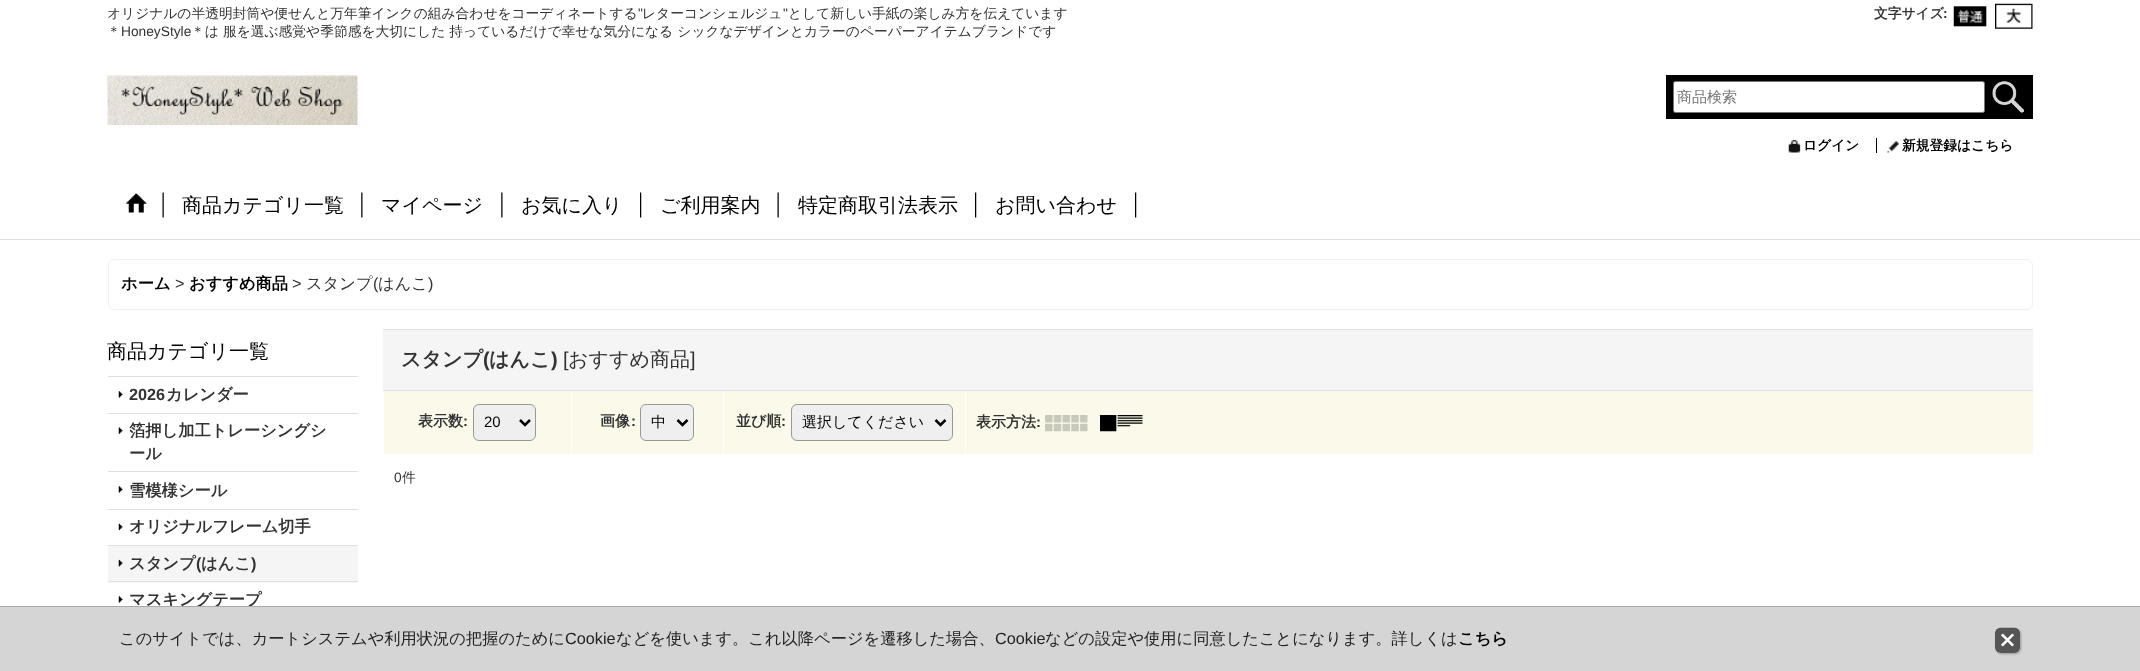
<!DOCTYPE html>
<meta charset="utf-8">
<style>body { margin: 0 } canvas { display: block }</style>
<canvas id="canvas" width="2140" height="671"></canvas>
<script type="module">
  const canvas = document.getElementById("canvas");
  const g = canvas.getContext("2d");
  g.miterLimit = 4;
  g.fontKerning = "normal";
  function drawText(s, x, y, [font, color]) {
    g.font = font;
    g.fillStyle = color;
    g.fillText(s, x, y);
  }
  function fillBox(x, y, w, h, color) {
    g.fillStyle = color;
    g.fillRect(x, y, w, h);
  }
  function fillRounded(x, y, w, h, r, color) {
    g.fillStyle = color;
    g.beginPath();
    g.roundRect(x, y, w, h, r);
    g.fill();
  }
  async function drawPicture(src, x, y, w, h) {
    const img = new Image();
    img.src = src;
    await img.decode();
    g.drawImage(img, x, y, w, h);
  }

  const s1 = ["500 13.75px WenQuanYi Zen Hei", "#333333"];
  const s2 = ["13.75px Liberation Sans", "#333333"];
  const s3 = ["bold 13.75px WenQuanYi Zen Hei", "#333333"];
  const s4 = ["bold 13.75px Liberation Sans", "#333333"];
  const s5 = ["500 15px WenQuanYi Zen Hei", "#757575"];
  const s6 = ["bold 13.75px WenQuanYi Zen Hei", "#000000"];
  const s7 = ["500 20px WenQuanYi Zen Hei", "#000000"];
  const s8 = ["bold 16.25px WenQuanYi Zen Hei", "#000000"];
  const s9 = ["16.25px Liberation Sans", "#333333"];
  const s10 = ["500 16.25px WenQuanYi Zen Hei", "#333333"];
  const s11 = ["bold 16.25px Liberation Sans", "#333333"];
  const s12 = ["bold 16.25px WenQuanYi Zen Hei", "#333333"];
  const s13 = ["bold 20px WenQuanYi Zen Hei", "#333333"];
  const s14 = ["bold 20px Liberation Sans", "#333333"];
  const s15 = ["20px Liberation Sans", "#333333"];
  const s16 = ["500 20px WenQuanYi Zen Hei", "#333333"];
  const s17 = ["bold 15px WenQuanYi Zen Hei", "#333333"];
  const s18 = ["bold 15px Liberation Sans", "#333333"];
  const s19 = ["15px Liberation Sans", "#000000"];
  const s20 = ["500 15px WenQuanYi Zen Hei", "#000000"];
  const s21 = ["500 16.25px WenQuanYi Zen Hei", "#222222"];
  const s22 = ["16.25px Liberation Sans", "#222222"];

  fillBox(0, 0, 2140, 671, "#FFFFFF");
  drawText("オリジナルの半透明封筒や便せんと万年筆インクの組み合わせをコーディネートする", 107, 18, s1);
  drawText("\"", 638, 18, s2);
  drawText("レターコンシェルジュ", 642, 18, s1);
  drawText("\"", 783, 18, s2);
  drawText("として新しい手紙の楽しみ方を伝えています", 788, 18, s1);
  drawText("＊", 107, 36, s1);
  drawText("HoneyStyle", 121, 36, s2);
  drawText("＊は 服を選ぶ感覚や季節感を大切にした 持っているだけで幸せな気分になる シックなデザインとカラーのペーパーアイテムブランドです", 191, 36, s1);
  drawText("文字サイズ", 1874, 18, s3);
  drawText(":", 1943, 18, s4);
  await drawPicture("pic1.png", 1953, 6, 34, 21);
  await drawPicture("pic2.png", 1995, 3, 38, 26);
  await drawPicture("pic3.png", 107, 75, 251, 50);
  fillBox(1666, 75, 367, 44, "#000000");
  g.fillStyle = "#FFFFFF";
  g.beginPath();
  g.roundRect(1673.5, 81.5, 311, 31, 2);
  g.fill();
  g.strokeStyle = "#767676";
  g.stroke();
  drawText("商品検索", 1677, 102, s5);
  await drawPicture("pic4.png", 1992, 81, 32, 32);
  await drawPicture("pic5.png", 1788, 139, 13, 14);
  drawText("ログイン", 1803, 150, s6);
  fillBox(1876, 138, 1, 15, "#000000");
  await drawPicture("pic6.png", 1887, 141, 12, 12);
  drawText("新規登録はこちら", 1902, 150, s6);
  fillBox(0, 239, 2140, 1, "#E0DFE3");
  await drawPicture("pic7.png", 162, 192, 2, 26);
  await drawPicture("pic8.png", 126, 193, 21, 20);
  await drawPicture("pic9.png", 361, 192, 2, 26);
  drawText("商品カテゴリ一覧", 182, 212, s7);
  await drawPicture("pic9.png", 501, 192, 2, 26);
  drawText("マイページ", 381, 212, s7);
  await drawPicture("pic10.png", 640, 192, 2, 26);
  drawText("お気に入り", 521, 212, s7);
  await drawPicture("pic7.png", 777, 192, 2, 26);
  drawText("ご利用案内", 660, 212, s7);
  await drawPicture("pic10.png", 975, 192, 2, 26);
  drawText("特定商取引法表示", 798, 212, s7);
  await drawPicture("pic10.png", 1135, 192, 2, 26);
  drawText("お問い合わせ", 995, 212, s7);
  g.beginPath();
  g.roundRect(108.5, 259.5, 1924, 50, 5.5);
  g.strokeStyle = "#F1F1F1";
  g.stroke();
  drawText("ホーム", 121, 289, s8);
  drawText(">", 175, 289, s9);
  drawText("おすすめ商品", 189, 289, s8);
  drawText(">", 292, 289, s9);
  drawText("スタンプ", 306, 289, s10);
  drawText("(", 373, 289, s9);
  drawText("はんこ", 378, 289, s10);
  drawText(")", 428, 289, s9);
  fillBox(108, 376, 250, 1, "#E0DFE3");
  drawText("商品カテゴリ一覧", 107, 358, s7);
  fillBox(108, 413, 250, 1, "#E0DFE3");
  await drawPicture("pic11.png", 118, 391, 5, 7);
  drawText("2026", 129, 400, s11);
  drawText("カレンダー", 166, 400, s12);
  fillBox(108, 471, 250, 1, "#E0DFE3");
  await drawPicture("pic12.png", 118, 427, 5, 7);
  drawText("箔押し加工トレーシングシ", 129, 436, s12);
  drawText("ール", 129, 459, s12);
  fillBox(108, 509, 250, 1, "#E0DFE3");
  await drawPicture("pic11.png", 118, 486, 5, 7);
  drawText("雪模様シール", 129, 496, s12);
  fillBox(108, 545, 250, 1, "#E0DFE3");
  await drawPicture("pic13.png", 118, 523, 5, 8);
  drawText("オリジナルフレーム切手", 129, 532, s12);
  fillBox(108, 546, 250, 37, "#F5F5F5");
  fillBox(108, 581, 250, 1, "#E0DFE3");
  await drawPicture("pic14.png", 118, 559, 5, 8);
  drawText("スタンプ", 129, 569, s12);
  drawText("(", 196, 569, s11);
  drawText("はんこ", 201, 569, s12);
  drawText(")", 251, 569, s11);
  await drawPicture("pic11.png", 118, 596, 5, 7);
  drawText("マスキングテープ", 129, 605, s12);
  fillBox(383, 330, 1650, 60, "#F5F5F5");
  fillBox(383, 329, 1650, 1, "#E0DFE3");
  fillBox(383, 390, 1650, 1, "#E0DFE3");
  drawText("スタンプ", 401, 366, s13);
  drawText("(", 483, 366, s14);
  drawText("はんこ", 489, 366, s13);
  drawText(")", 551, 366, s14);
  drawText("[", 563, 366, s15);
  drawText("おすすめ商品", 568, 366, s16);
  drawText("]", 690, 366, s15);
  fillBox(384, 391, 1649, 63, "#FBFAEA");
  drawText("表示数", 418, 426, s17);
  drawText(":", 463, 426, s18);
  g.fillStyle = "#EFEFEF";
  g.beginPath();
  g.roundRect(473.5, 404.5, 62, 36, 5.5);
  g.fill();
  g.strokeStyle = "#999999";
  g.stroke();
  g.beginPath();
  g.moveTo(520, 420);
  g.lineTo(525, 425);
  g.lineTo(530, 420);
  g.strokeStyle = "#000000";
  g.lineWidth = 2.5;
  g.stroke();
  drawText("20", 484, 427, s19);
  fillBox(571, 391, 1, 63, "#FFFFFF");
  drawText("画像", 600, 426, s17);
  drawText(":", 631, 426, s18);
  g.fillStyle = "#EFEFEF";
  g.beginPath();
  g.roundRect(640.5, 404.5, 53, 36, 5.5);
  g.fill();
  g.strokeStyle = "#999999";
  g.lineWidth = 1;
  g.stroke();
  g.beginPath();
  g.moveTo(677.5, 420);
  g.lineTo(682.5, 425);
  g.lineTo(687.5, 420);
  g.strokeStyle = "#000000";
  g.lineWidth = 2.5;
  g.stroke();
  drawText("中", 651, 427, s20);
  fillBox(723, 391, 1, 63, "#FFFFFF");
  drawText("並び順", 736, 426, s17);
  drawText(":", 781, 426, s18);
  g.fillStyle = "#EFEFEF";
  g.beginPath();
  g.roundRect(791.5, 404.5, 161, 36, 5.5);
  g.fill();
  g.strokeStyle = "#999999";
  g.lineWidth = 1;
  g.stroke();
  g.beginPath();
  g.moveTo(935.5, 420);
  g.lineTo(940.5, 425);
  g.lineTo(945.5, 420);
  g.strokeStyle = "#000000";
  g.lineWidth = 2.5;
  g.stroke();
  drawText("選択してください", 802, 427, s20);
  fillBox(965, 391, 1, 63, "#FFFFFF");
  drawText("表示方法", 976, 427, s17);
  drawText(":", 1036, 427, s18);
  await drawPicture("pic15.png", 1045, 415, 43, 17);
  await drawPicture("pic16.png", 1100, 415, 43, 17);
  drawText("0", 394, 482, s2);
  drawText("件", 402, 482, s1);
  fillBox(0, 607, 2140, 64, "#D5D5D5");
  fillBox(0, 606, 2140, 1, "#AAAAAA");
  drawText("このサイトでは、カートシステムや利用状況の把握のために", 119, 644, s21);
  drawText("Cookie", 565, 644, s22);
  drawText("などを使います。これ以降ページを遷移した場合、", 616, 644, s21);
  drawText("Cookie", 995, 644, s22);
  drawText("などの設定や使用に同意したことになります。詳しくは", 1045, 644, s21);
  drawText("こちら", 1458, 644, s8);
  g.fillStyle = "rgba(0, 0, 0, 0.3)";
  g.filter = "blur(1px)";
  g.beginPath();
  g.roundRect(1996, 629, 25, 25, 6);
  g.fill();
  g.filter = "none";
  fillRounded(1995, 628, 25, 25, 6, "#555555");
  await drawPicture("pic17.png", 1995, 627, 25, 24);
</script>
